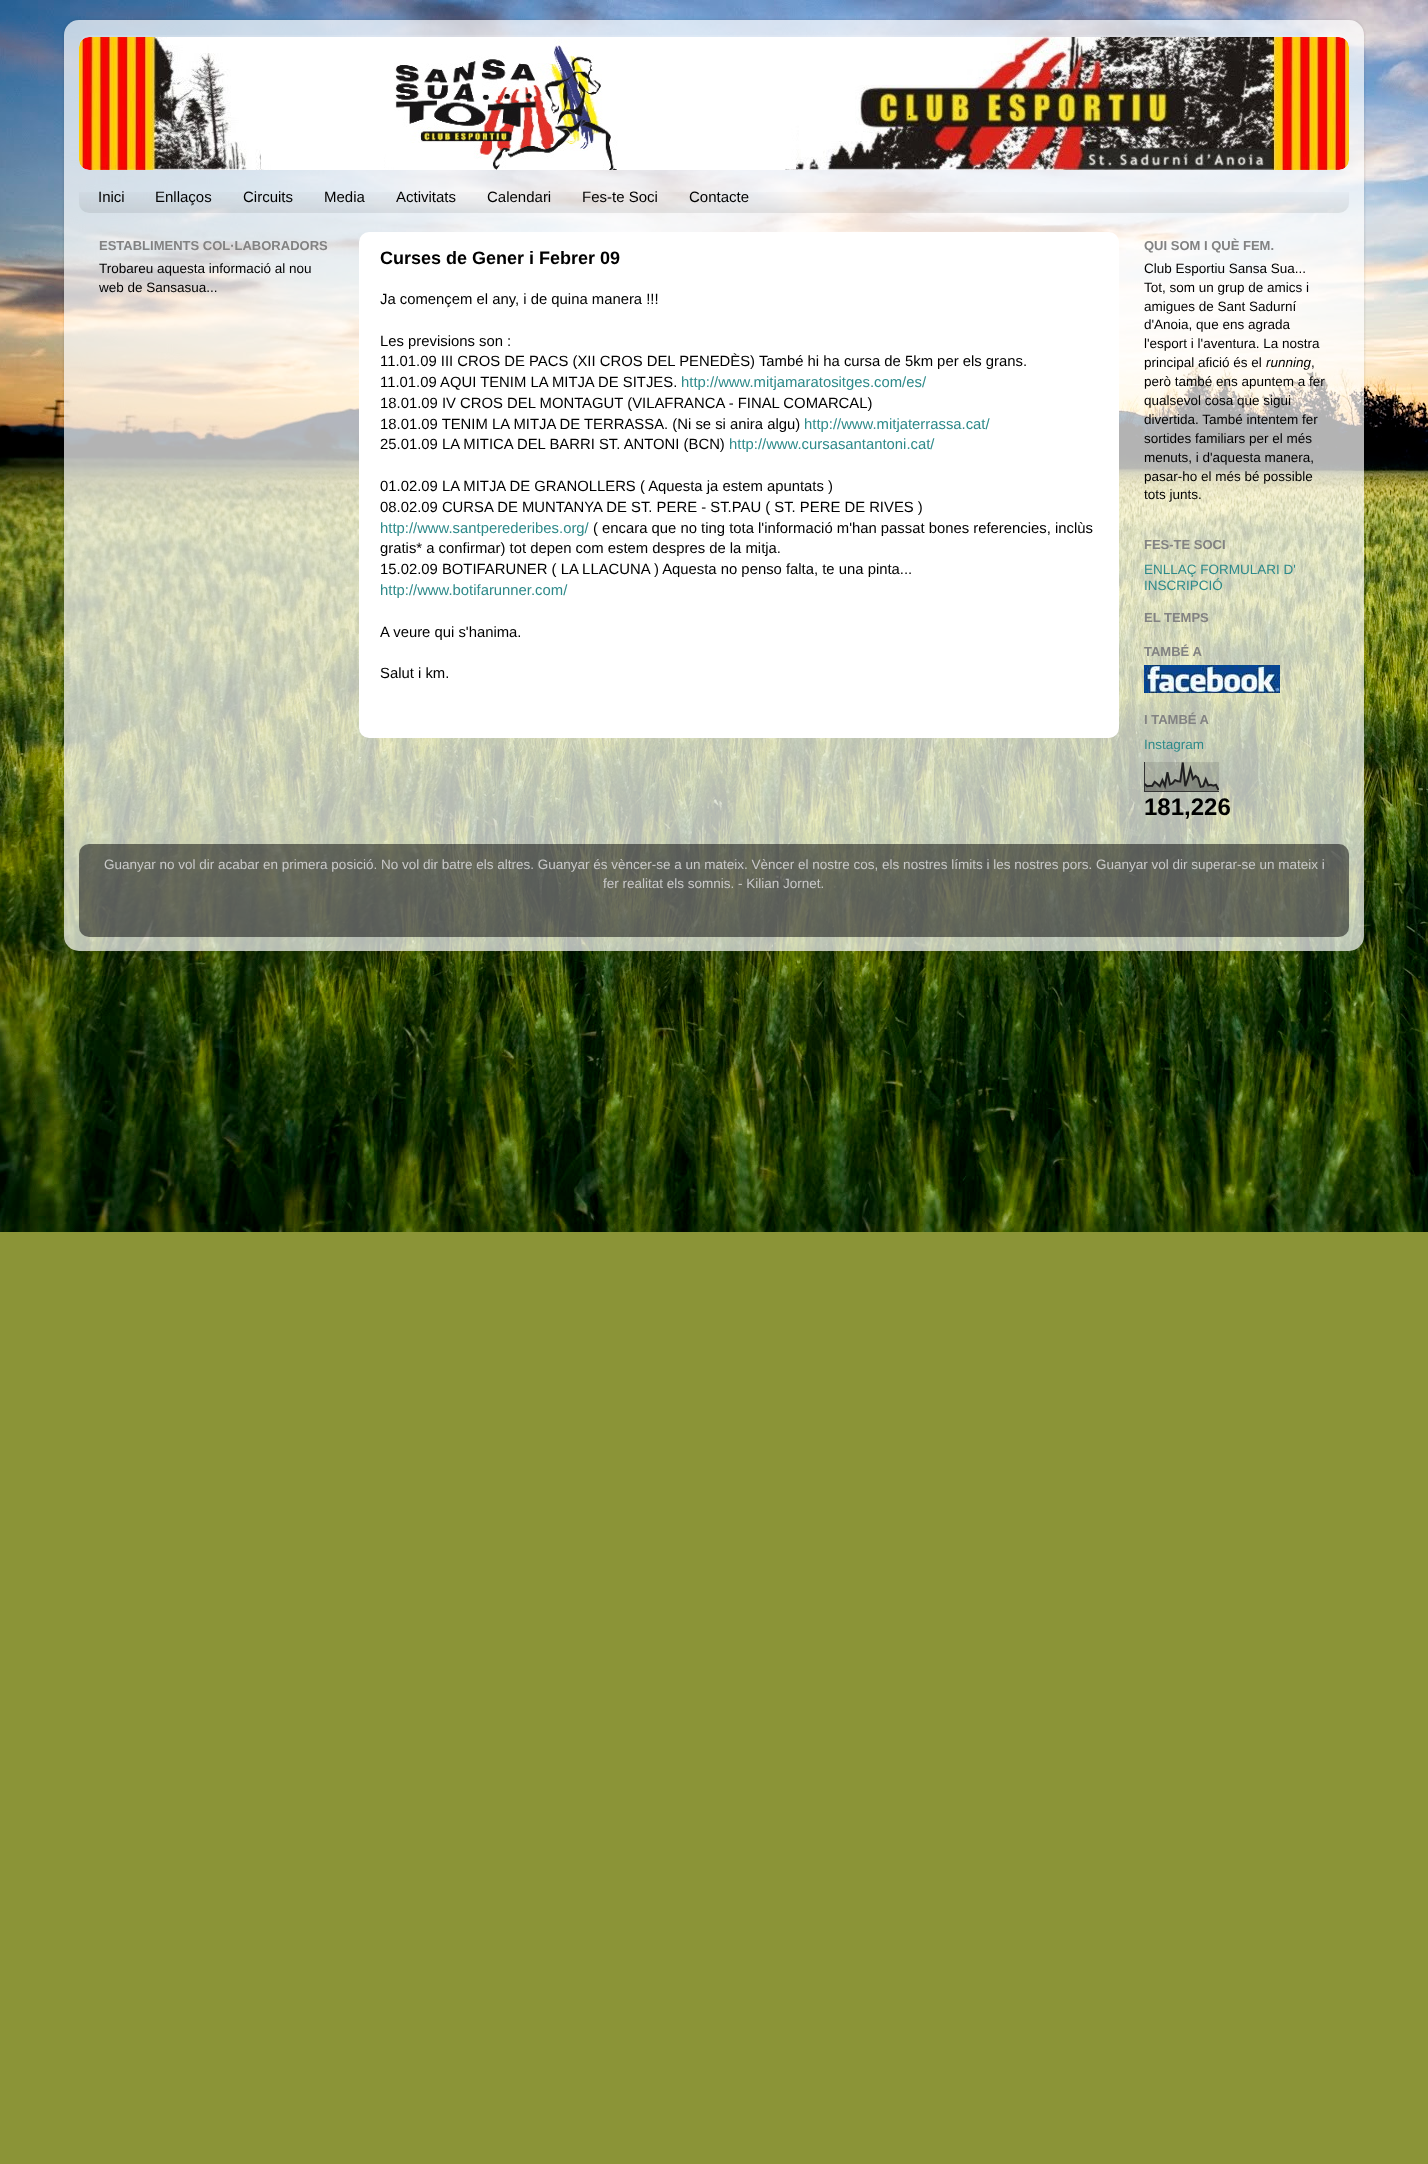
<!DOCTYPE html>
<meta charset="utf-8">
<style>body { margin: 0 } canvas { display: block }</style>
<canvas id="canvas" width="1428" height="2164"></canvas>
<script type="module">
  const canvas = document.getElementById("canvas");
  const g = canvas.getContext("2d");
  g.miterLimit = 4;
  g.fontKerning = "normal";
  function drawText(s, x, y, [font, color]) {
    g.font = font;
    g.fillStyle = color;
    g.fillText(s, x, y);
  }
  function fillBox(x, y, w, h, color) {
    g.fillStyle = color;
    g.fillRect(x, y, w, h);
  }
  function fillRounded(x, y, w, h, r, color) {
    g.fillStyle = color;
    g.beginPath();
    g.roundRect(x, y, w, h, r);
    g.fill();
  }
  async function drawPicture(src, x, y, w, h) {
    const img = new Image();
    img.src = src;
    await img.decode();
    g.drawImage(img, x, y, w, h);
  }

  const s1 = ["15px Liberation Sans", "#000000"];
  const s2 = ["bold 13px Liberation Sans", "#828282"];
  const s3 = ["13.5px Liberation Sans", "#000000"];
  const s4 = ["bold 18px Liberation Sans", "#000000"];
  const s5 = ["14.85px Liberation Sans", "#000000"];
  const s6 = ["14.85px Liberation Sans", "#2E8A8A"];
  const s7 = ["italic 13.5px Liberation Sans", "#000000"];
  const s8 = ["13.5px Liberation Sans", "#2E8A8A"];
  const s9 = ["bold 24px Liberation Sans", "#000000"];
  const s10 = ["13.5px Liberation Sans", "#C9C9C9"];

  fillBox(0, 0, 1428, 2164, "#8B9437");
  await drawPicture("pic1.png", 0, 0, 1428, 1232);
  g.save();
  g.beginPath();
  g.moveTo(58, 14);
  g.lineTo(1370, 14);
  g.lineTo(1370, 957);
  g.lineTo(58, 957);
  g.closePath();
  g.moveTo(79, 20);
  g.lineTo(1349, 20);
  g.bezierCurveTo(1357.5, 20, 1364, 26.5, 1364, 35);
  g.lineTo(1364, 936);
  g.bezierCurveTo(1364, 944.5, 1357.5, 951, 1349, 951);
  g.lineTo(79, 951);
  g.bezierCurveTo(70.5, 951, 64, 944.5, 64, 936);
  g.lineTo(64, 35);
  g.bezierCurveTo(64, 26.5, 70.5, 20, 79, 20);
  g.closePath();
  g.clip("evenodd");
  g.fillStyle = "rgba(0, 0, 0, 0.15)";
  g.filter = "blur(1.5px)";
  g.beginPath();
  g.roundRect(64, 20, 1300, 931, 15);
  g.fill();
  g.filter = "none";
  g.restore();
  await drawPicture("pic2.png", 64, 20, 1300, 931);
  await drawPicture("pic3.png", 79, 35, 1270, 12);
  await drawPicture("pic4.png", 79, 37, 1270, 133);
  await drawPicture("pic5.png", 79, 192, 1270, 21);
  drawText("Inici", 98, 202, s1);
  drawText("Enllaços", 155, 202, s1);
  drawText("Circuits", 243, 202, s1);
  drawText("Media", 324, 202, s1);
  drawText("Activitats", 396, 202, s1);
  drawText("Calendari", 487, 202, s1);
  drawText("Fes-te Soci", 582, 202, s1);
  drawText("Contacte", 689, 202, s1);
  drawText("ESTABLIMENTS COL·LABORADORS", 99, 250, s2);
  drawText("Trobareu aquesta informació al nou", 99, 273, s3);
  drawText("web de Sansasua...", 99, 292, s3);
  fillRounded(359, 232, 760, 506, 10, "#FFFFFF");
  drawText("Curses de Gener i Febrer 09", 380, 264, s4);
  drawText("Ja començem el any, i de quina manera !!!", 380, 304, s5);
  drawText("Les previsions son :", 380, 346, s5);
  drawText("11.01.09 III CROS DE PACS (XII CROS DEL PENEDÈS) També hi ha cursa de 5km per els grans.", 380, 366, s5);
  drawText("11.01.09 AQUI TENIM LA MITJA DE SITJES.", 380, 387, s5);
  drawText("http://www.mitjamaratositges.com/es/", 681, 387, s6);
  drawText("18.01.09 IV CROS DEL MONTAGUT (VILAFRANCA - FINAL COMARCAL)", 380, 408, s5);
  drawText("18.01.09 TENIM LA MITJA DE TERRASSA. (Ni se si anira algu)", 380, 429, s5);
  drawText("http://www.mitjaterrassa.cat/", 804, 429, s6);
  drawText("25.01.09 LA MITICA DEL BARRI ST. ANTONI (BCN)", 380, 449, s5);
  drawText("http://www.cursasantantoni.cat/", 729, 449, s6);
  drawText("01.02.09 LA MITJA DE GRANOLLERS ( Aquesta ja estem apuntats )", 380, 491, s5);
  drawText("08.02.09 CURSA DE MUNTANYA DE ST. PERE - ST.PAU ( ST. PERE DE RIVES )", 380, 512, s5);
  drawText("http://www.santperederibes.org/", 380, 533, s6);
  drawText("( encara que no ting tota l'informació m'han passat bones referencies, inclùs", 593, 533, s5);
  drawText("gratis* a confirmar) tot depen com estem despres de la mitja.", 380, 553, s5);
  drawText("15.02.09 BOTIFARUNER ( LA LLACUNA ) Aquesta no penso falta, te una pinta...", 380, 574, s5);
  drawText("http://www.botifarunner.com/", 380, 595, s6);
  drawText("A veure qui s'hanima.", 380, 637, s5);
  drawText("Salut i km.", 380, 678, s5);
  drawText("QUI SOM I QUÈ FEM.", 1144, 250, s2);
  drawText("Club Esportiu Sansa Sua...", 1144, 273, s3);
  drawText("Tot, som un grup de amics i", 1144, 292, s3);
  drawText("amigues de Sant Sadurní", 1144, 311, s3);
  drawText("d'Anoia, que ens agrada", 1144, 329, s3);
  drawText("l'esport i l'aventura. La nostra", 1144, 348, s3);
  drawText("principal afició és el", 1144, 367, s3);
  drawText("running", 1266, 367, s7);
  drawText(",", 1311, 367, s3);
  drawText("però també ens apuntem a fer", 1144, 386, s3);
  drawText("qualsevol cosa que sigui", 1144, 405, s3);
  drawText("divertida. També intentem fer", 1144, 424, s3);
  drawText("sortides familiars per el més", 1144, 443, s3);
  drawText("menuts, i d'aquesta manera,", 1144, 462, s3);
  drawText("pasar-ho el més bé possible", 1144, 481, s3);
  drawText("tots junts.", 1144, 499, s3);
  drawText("FES-TE SOCI", 1144, 549, s2);
  drawText("ENLLAÇ FORMULARI D'", 1144, 574, s8);
  drawText("INSCRIPCIÓ", 1144, 590, s8);
  drawText("EL TEMPS", 1144, 622, s2);
  drawText("TAMBÉ A", 1144, 656, s2);
  await drawPicture("pic6.png", 1144, 665, 136, 28);
  drawText("I TAMBÉ A", 1144, 724, s2);
  drawText("Instagram", 1144, 749, s8);
  await drawPicture("pic7.png", 1144, 762, 75, 30);
  drawText("181,226", 1144, 815, s9);
  await drawPicture("pic8.png", 79, 844, 1270, 93);
  drawText("Guanyar no vol dir acabar en primera posició. No vol dir batre els altres. Guanyar és vèncer-se a un mateix. Vèncer el nostre cos, els nostres límits i les nostres pors. Guanyar vol dir superar-se un mateix i", 104, 869, s10);
  drawText("fer realitat els somnis. - Kilian Jornet.", 603, 888, s10);
</script>
